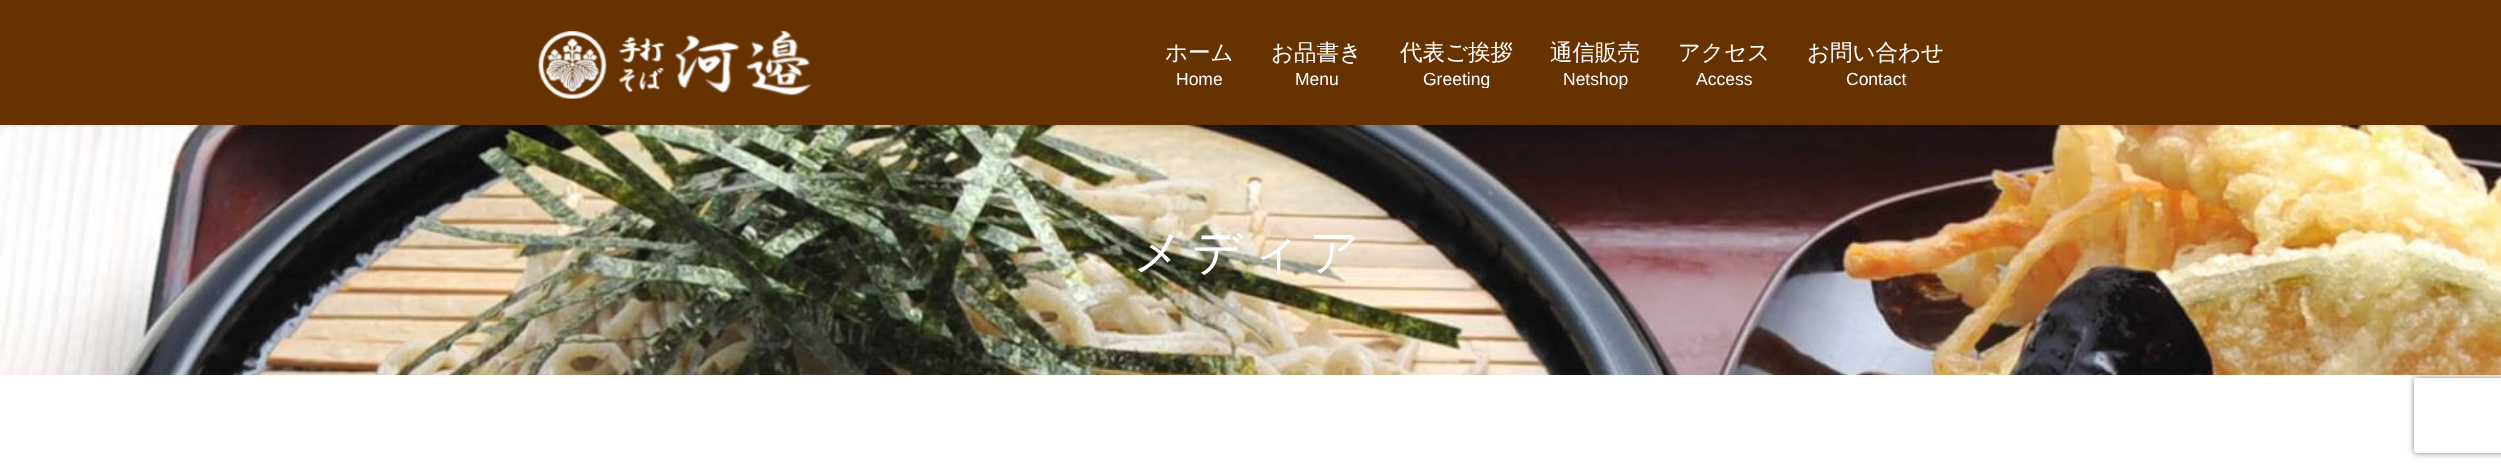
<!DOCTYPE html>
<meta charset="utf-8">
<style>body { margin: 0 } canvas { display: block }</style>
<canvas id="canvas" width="2501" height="470"></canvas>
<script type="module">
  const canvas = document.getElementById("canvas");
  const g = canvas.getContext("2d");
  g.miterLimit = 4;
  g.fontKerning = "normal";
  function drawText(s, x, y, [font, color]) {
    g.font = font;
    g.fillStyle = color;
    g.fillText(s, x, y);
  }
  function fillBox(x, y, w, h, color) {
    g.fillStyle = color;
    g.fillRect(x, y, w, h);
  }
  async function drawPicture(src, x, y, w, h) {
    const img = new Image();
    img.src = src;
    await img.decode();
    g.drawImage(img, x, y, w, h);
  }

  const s1 = ["500 22.5px WenQuanYi Zen Hei", "#FFFFFF"];
  const s2 = ["17.5px Liberation Sans", "#FFFFFF"];
  const s3 = ["500 50px WenQuanYi Zen Hei", "#FFFFFF"];

  fillBox(0, 0, 2501, 470, "#FFFFFF");
  await drawPicture("pic2.png", 0, 125, 2501, 250);
  g.fillStyle = "rgba(0, 0, 0, 0.1)";
  g.filter = "blur(2px)";
  g.beginPath();
  g.rect(0, 1, 2501, 125);
  g.fill();
  g.filter = "none";
  fillBox(0, 0, 2501, 125, "#663300");
  await drawPicture("pic1.png", 538, 31, 274, 68);
  drawText("ホーム", 1165, 60, s1);
  drawText("Home", 1176, 85, s2);
  drawText("お品書き", 1271, 60, s1);
  drawText("Menu", 1295, 85, s2);
  drawText("代表ご挨拶", 1400, 60, s1);
  g.save();
  g.beginPath();
  g.rect(1400, 70, 113, 18);
  g.clip();
  drawText("Greeting", 1423, 85, s2);
  g.restore();
  drawText("通信販売", 1550, 60, s1);
  drawText("Netshop", 1563, 85, s2);
  drawText("アクセス", 1678, 60, s1);
  drawText("Access", 1696, 85, s2);
  drawText("お問い合わせ", 1807, 60, s1);
  drawText("Contact", 1846, 85, s2);
  g.letterSpacing = "7.5px";
  drawText("メディア", 1133, 269, s3);
  g.save();
  g.beginPath();
  g.moveTo(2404, 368);
  g.lineTo(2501, 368);
  g.lineTo(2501, 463);
  g.lineTo(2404, 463);
  g.closePath();
  g.moveTo(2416.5, 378);
  g.lineTo(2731.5, 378);
  g.bezierCurveTo(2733, 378, 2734, 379, 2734, 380.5);
  g.lineTo(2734, 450.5);
  g.bezierCurveTo(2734, 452, 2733, 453, 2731.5, 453);
  g.lineTo(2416.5, 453);
  g.bezierCurveTo(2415, 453, 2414, 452, 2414, 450.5);
  g.lineTo(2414, 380.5);
  g.bezierCurveTo(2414, 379, 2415, 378, 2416.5, 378);
  g.closePath();
  g.clip("evenodd");
  g.fillStyle = "#808080";
  g.filter = "blur(3px)";
  g.beginPath();
  g.roundRect(2414, 378, 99, 75, 2.5);
  g.fill();
  g.filter = "none";
  g.restore();
</script>
